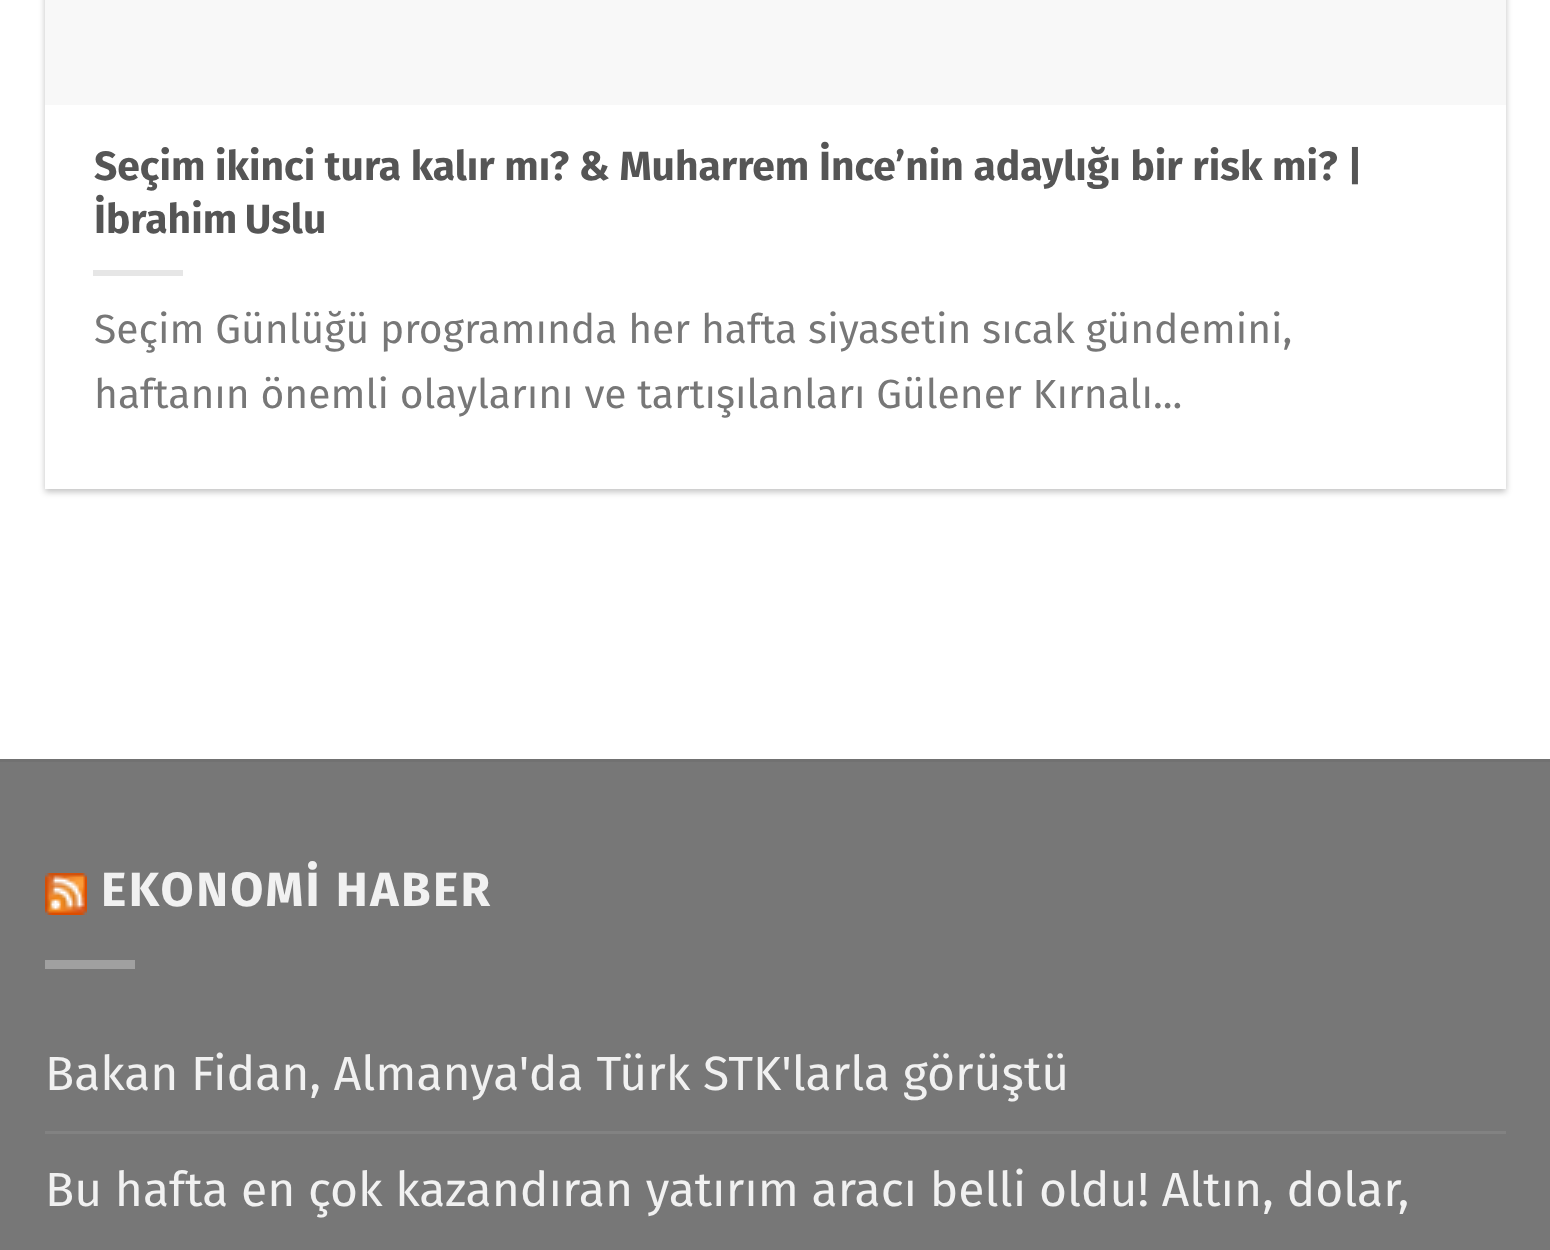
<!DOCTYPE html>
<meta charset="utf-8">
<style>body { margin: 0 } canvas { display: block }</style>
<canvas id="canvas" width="1550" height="1250"></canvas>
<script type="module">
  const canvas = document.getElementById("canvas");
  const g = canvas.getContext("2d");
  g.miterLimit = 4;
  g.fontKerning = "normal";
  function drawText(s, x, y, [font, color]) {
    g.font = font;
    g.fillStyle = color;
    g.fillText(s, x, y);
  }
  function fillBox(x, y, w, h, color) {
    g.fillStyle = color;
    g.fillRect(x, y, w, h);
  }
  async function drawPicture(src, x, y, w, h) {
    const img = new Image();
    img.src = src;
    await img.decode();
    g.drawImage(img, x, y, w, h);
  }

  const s1 = ["bold 40.8px Fira Sans", "#555555"];
  const s2 = ["40.8px Fira Sans", "#777777"];
  const s3 = ["bold 48px Fira Sans", "#F1F1F1"];
  const s4 = ["48px Fira Sans", "#F1F1F1"];

  fillBox(0, 0, 1550, 1250, "#FFFFFF");
  g.save();
  g.beginPath();
  g.moveTo(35, 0);
  g.lineTo(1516, 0);
  g.lineTo(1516, 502);
  g.lineTo(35, 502);
  g.closePath();
  g.moveTo(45, -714);
  g.lineTo(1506, -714);
  g.lineTo(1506, 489);
  g.lineTo(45, 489);
  g.closePath();
  g.clip("evenodd");
  g.fillStyle = "rgba(0, 0, 0, 0.24)";
  g.filter = "blur(3px)";
  g.beginPath();
  g.rect(45, -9, 1461, 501);
  g.fill();
  g.filter = "none";
  g.restore();
  fillBox(45, 0, 1461, 105, "#F8F8F8");
  drawText("Seçim ikinci tura kalır mı? & Muharrem İnce’nin adaylığı bir risk mi? |", 94, 180, s1);
  g.wordSpacing = "-2px";
  drawText("İbrahim Uslu", 94, 233, s1);
  fillBox(93, 270, 90, 6, "#E6E6E6");
  g.wordSpacing = "0px";
  drawText("Seçim Günlüğü programında her hafta siyasetin sıcak gündemini,", 94, 343, s2);
  drawText("haftanın önemli olaylarını ve tartışılanları Gülener Kırnalı...", 94, 408, s2);
  fillBox(0, 762, 1550, 488, "#777777");
  fillBox(0, 759, 1550, 3, "#717171");
  await drawPicture("pic1.png", 45, 873, 42, 42);
  g.letterSpacing = "2.4px";
  drawText("EKONOMİ HABER", 101, 906, s3);
  fillBox(45, 960, 90, 9, "#A0A0A0");
  g.letterSpacing = "0px";
  drawText("Bakan Fidan, Almanya'da Türk STK'larla görüştü", 45, 1090, s4);
  fillBox(45, 1131, 1461, 3, "#828282");
  drawText("Bu hafta en çok kazandıran yatırım aracı belli oldu! Altın, dolar,", 45, 1206, s4);
</script>
